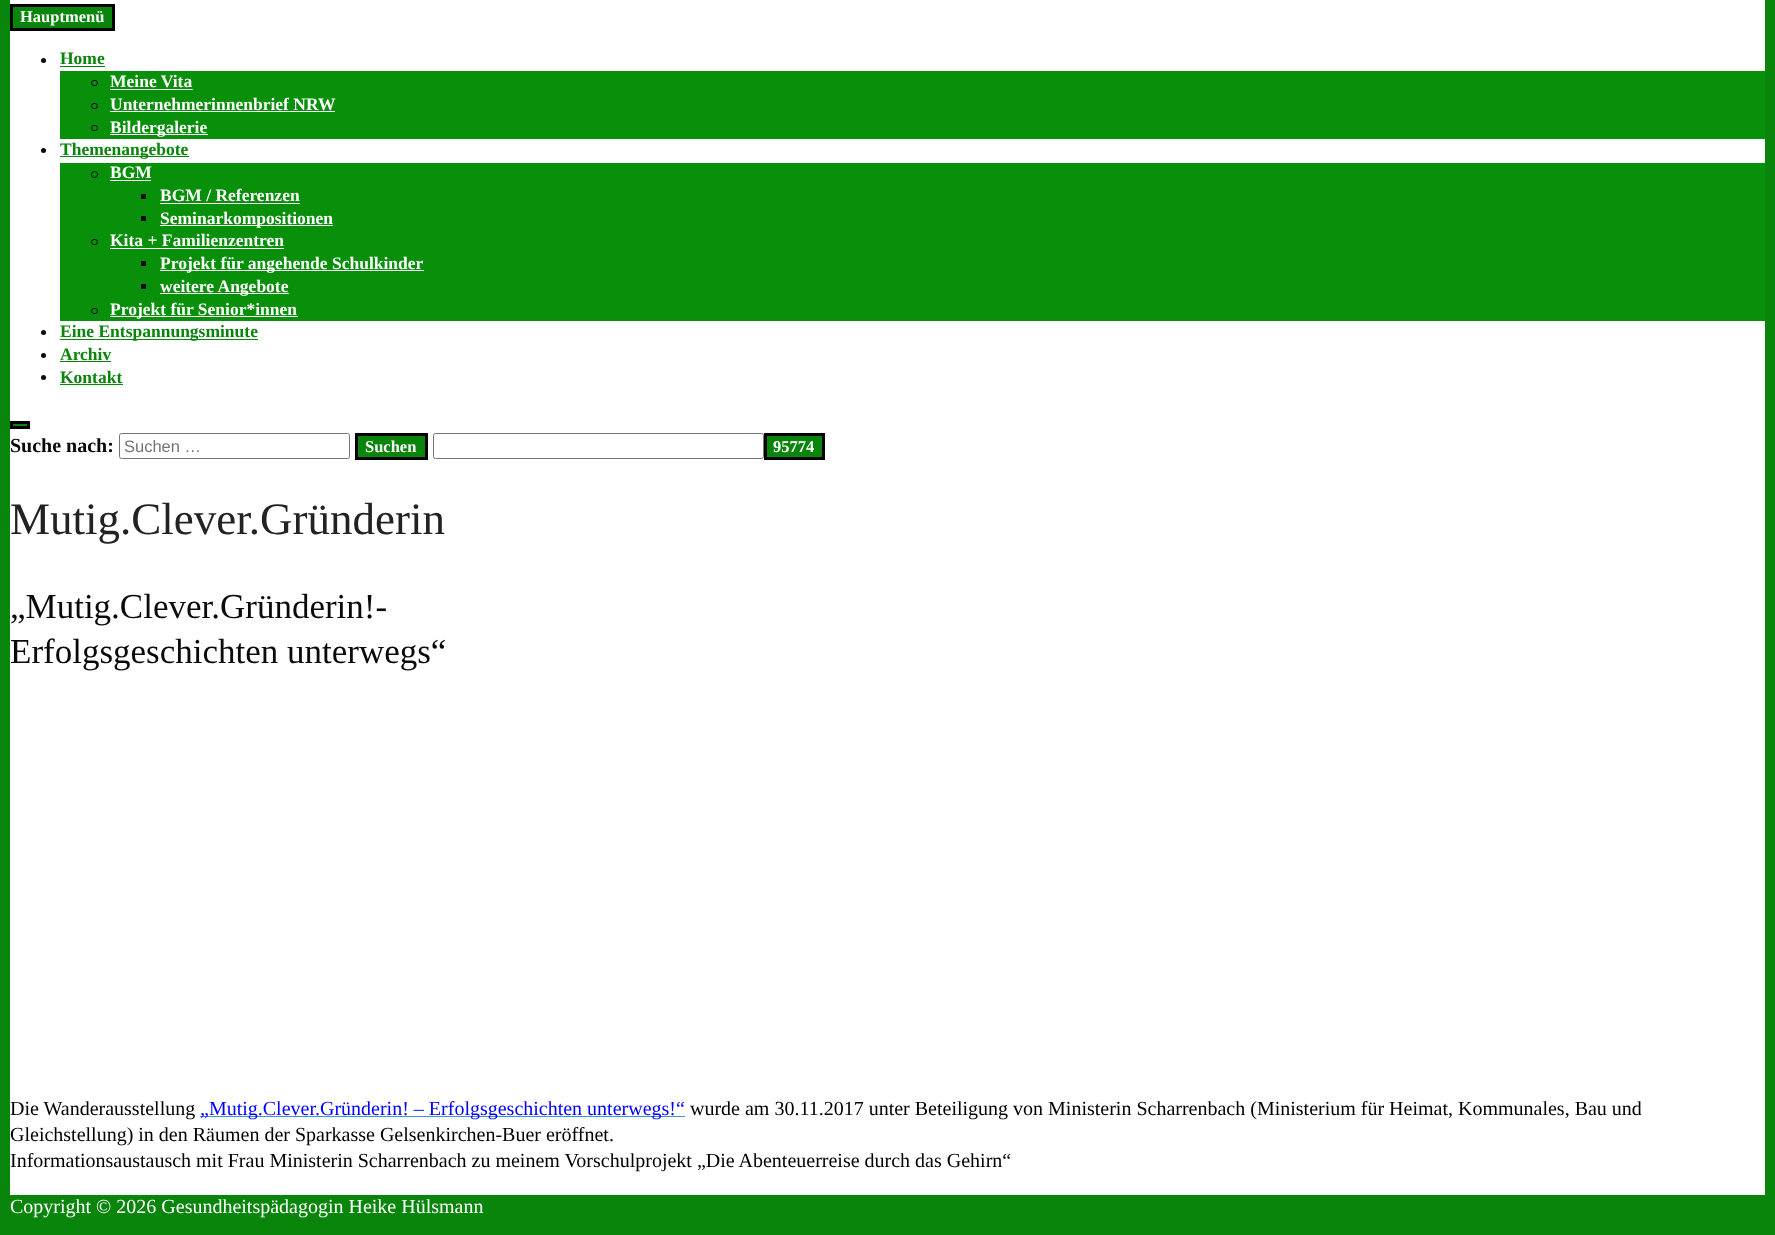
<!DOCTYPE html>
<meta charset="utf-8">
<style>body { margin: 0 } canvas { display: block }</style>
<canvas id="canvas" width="1775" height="1235"></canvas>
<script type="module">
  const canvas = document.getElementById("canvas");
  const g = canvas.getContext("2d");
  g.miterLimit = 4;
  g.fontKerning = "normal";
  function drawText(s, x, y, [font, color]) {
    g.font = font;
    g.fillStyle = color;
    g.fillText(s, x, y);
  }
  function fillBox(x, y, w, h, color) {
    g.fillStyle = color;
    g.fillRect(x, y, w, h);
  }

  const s1 = ["bold 16.5px Liberation Serif", "#FFFFFF"];
  const s2 = ["bold 17.5px Liberation Serif", "#09850B"];
  const s3 = ["bold 17.5px Liberation Serif", "#FFFFFF"];
  const s4 = ["bold 20px Liberation Serif", "#0A0A0A"];
  const s5 = ["16.5px Liberation Sans", "#757575"];
  const s6 = ["45px Liberation Serif", "#222222"];
  const s7 = ["35px Liberation Serif", "#0A0A0A"];
  const s8 = ["20px Liberation Serif", "#000000"];
  const s9 = ["20px Liberation Serif", "#0000FF"];
  const s10 = ["20px Liberation Serif", "#FFFFFF"];

  fillBox(0, 0, 1775, 1235, "#09850B");
  fillBox(10, 0, 1755, 1195, "#FFFFFF");
  g.fillStyle = "#09850B";
  g.beginPath();
  g.rect(11.5, 5.5, 102, 24);
  g.fill();
  g.strokeStyle = "#000000";
  g.lineWidth = 3;
  g.stroke();
  drawText("Hauptmenü", 20, 22, s1);
  g.fillStyle = "#0A0A0A";
  g.beginPath();
  g.arc(43.5, 60.5, 2.5, 0, Math.PI * 2);
  g.fill();
  drawText("Home", 60, 64, s2);
  fillBox(60, 66, 45, 1, "#09850B");
  fillBox(60, 71, 1705, 68, "#08900A");
  g.beginPath();
  g.roundRect(91.5, 80.5, 6, 5, 2.5);
  g.strokeStyle = "#0A0A0A";
  g.lineWidth = 1;
  g.stroke();
  drawText("Meine Vita", 110, 87, s3);
  fillBox(110, 89, 83, 1, "#FFFFFF");
  g.beginPath();
  g.roundRect(91.5, 103.5, 6, 5, 2.5);
  g.stroke();
  drawText("Unternehmerinnenbrief NRW", 110, 110, s3);
  fillBox(110, 111, 225, 1, "#FFFFFF");
  g.beginPath();
  g.roundRect(91.5, 125.5, 6, 5, 2.5);
  g.stroke();
  fillBox(110, 134, 98, 1, "#FFFFFF");
  drawText("Bildergalerie", 110, 133, s3);
  g.fillStyle = "#0A0A0A";
  g.beginPath();
  g.arc(43.5, 150.5, 2.5, 0, Math.PI * 2);
  g.fill();
  fillBox(60, 156, 129, 1, "#09850B");
  drawText("Themenangebote", 60, 155, s2);
  fillBox(60, 163, 1705, 158, "#08900A");
  g.beginPath();
  g.arc(94.5, 174.5, 3, 0, Math.PI * 2);
  g.stroke();
  drawText("BGM", 110, 178, s3);
  fillBox(110, 180, 41, 1, "#FFFFFF");
  fillBox(141, 194, 5, 5, "#0A0A0A");
  drawText("BGM / Referenzen", 160, 201, s3);
  fillBox(160, 203, 140, 1, "#FFFFFF");
  fillBox(141, 216, 5, 5, "#0A0A0A");
  fillBox(160, 225, 173, 1, "#FFFFFF");
  drawText("Seminarkompositionen", 160, 224, s3);
  g.beginPath();
  g.roundRect(91.5, 239.5, 6, 5, 2.5);
  g.stroke();
  drawText("Kita + Familienzentren", 110, 246, s3);
  fillBox(110, 248, 174, 1, "#FFFFFF");
  fillBox(141, 261, 5, 5, "#0A0A0A");
  fillBox(160, 270, 264, 1, "#FFFFFF");
  drawText("Projekt für angehende Schulkinder", 160, 269, s3);
  fillBox(141, 284, 5, 5, "#0A0A0A");
  fillBox(160, 293, 129, 1, "#FFFFFF");
  drawText("weitere Angebote", 160, 292, s3);
  g.beginPath();
  g.roundRect(91.5, 308.5, 6, 5, 2.5);
  g.stroke();
  fillBox(110, 316, 188, 1, "#FFFFFF");
  drawText("Projekt für Senior*innen", 110, 315, s3);
  g.fillStyle = "#0A0A0A";
  g.beginPath();
  g.arc(43.5, 332.5, 2.5, 0, Math.PI * 2);
  g.fill();
  fillBox(60, 339, 198, 1, "#09850B");
  drawText("Eine Entspannungsminute", 60, 337, s2);
  g.fillStyle = "#0A0A0A";
  g.beginPath();
  g.arc(43.5, 355.5, 2.5, 0, Math.PI * 2);
  g.fill();
  drawText("Archiv", 60, 360, s2);
  fillBox(60, 361, 51, 1, "#09850B");
  g.fillStyle = "#0A0A0A";
  g.beginPath();
  g.arc(43.5, 377.5, 2.5, 0, Math.PI * 2);
  g.fill();
  drawText("Kontakt", 60, 383, s2);
  fillBox(60, 384, 63, 1, "#09850B");
  g.beginPath();
  g.rect(11.5, 422.5, 17, 5);
  g.fill();
  g.strokeStyle = "#000000";
  g.lineWidth = 3;
  g.stroke();
  drawText("Suche nach:", 10, 452, s4);
  g.beginPath();
  g.roundRect(119.5, 433.5, 230, 25, 2);
  g.strokeStyle = "#767676";
  g.lineWidth = 1;
  g.stroke();
  drawText("Suchen …", 124, 452, s5);
  g.fillStyle = "#09850B";
  g.beginPath();
  g.rect(356.5, 434.5, 70, 24);
  g.fill();
  g.strokeStyle = "#000000";
  g.lineWidth = 3;
  g.stroke();
  drawText("Suchen", 365, 452, s1);
  g.beginPath();
  g.roundRect(433.5, 433.5, 330, 25, 2);
  g.strokeStyle = "#767676";
  g.lineWidth = 1;
  g.stroke();
  g.fillStyle = "#09850B";
  g.beginPath();
  g.rect(765.5, 434.5, 58, 24);
  g.fill();
  g.strokeStyle = "#000000";
  g.lineWidth = 3;
  g.stroke();
  drawText("95774", 773, 452, s1);
  drawText("Mutig.Clever.Gründerin", 10, 534, s6);
  drawText("„Mutig.Clever.Gründerin!-", 10, 618, s7);
  drawText("Erfolgsgeschichten unterwegs“", 10, 663, s7);
  drawText("Die Wanderausstellung", 10, 1115, s8);
  fillBox(200, 1116, 485, 1, "#3498DB");
  drawText("„Mutig.Clever.Gründerin! – Erfolgsgeschichten unterwegs!“", 200, 1115, s9);
  drawText("wurde am 30.11.2017 unter Beteiligung von Ministerin Scharrenbach (Ministerium für Heimat, Kommunales, Bau und", 690, 1115, s8);
  drawText("Gleichstellung) in den Räumen der Sparkasse Gelsenkirchen-Buer eröffnet.", 10, 1141, s8);
  drawText("Informationsaustausch mit Frau Ministerin Scharrenbach zu meinem Vorschulprojekt „Die Abenteuerreise durch das Gehirn“", 10, 1167, s8);
  drawText("Copyright © 2026 Gesundheitspädagogin Heike Hülsmann", 10, 1213, s10);
</script>
